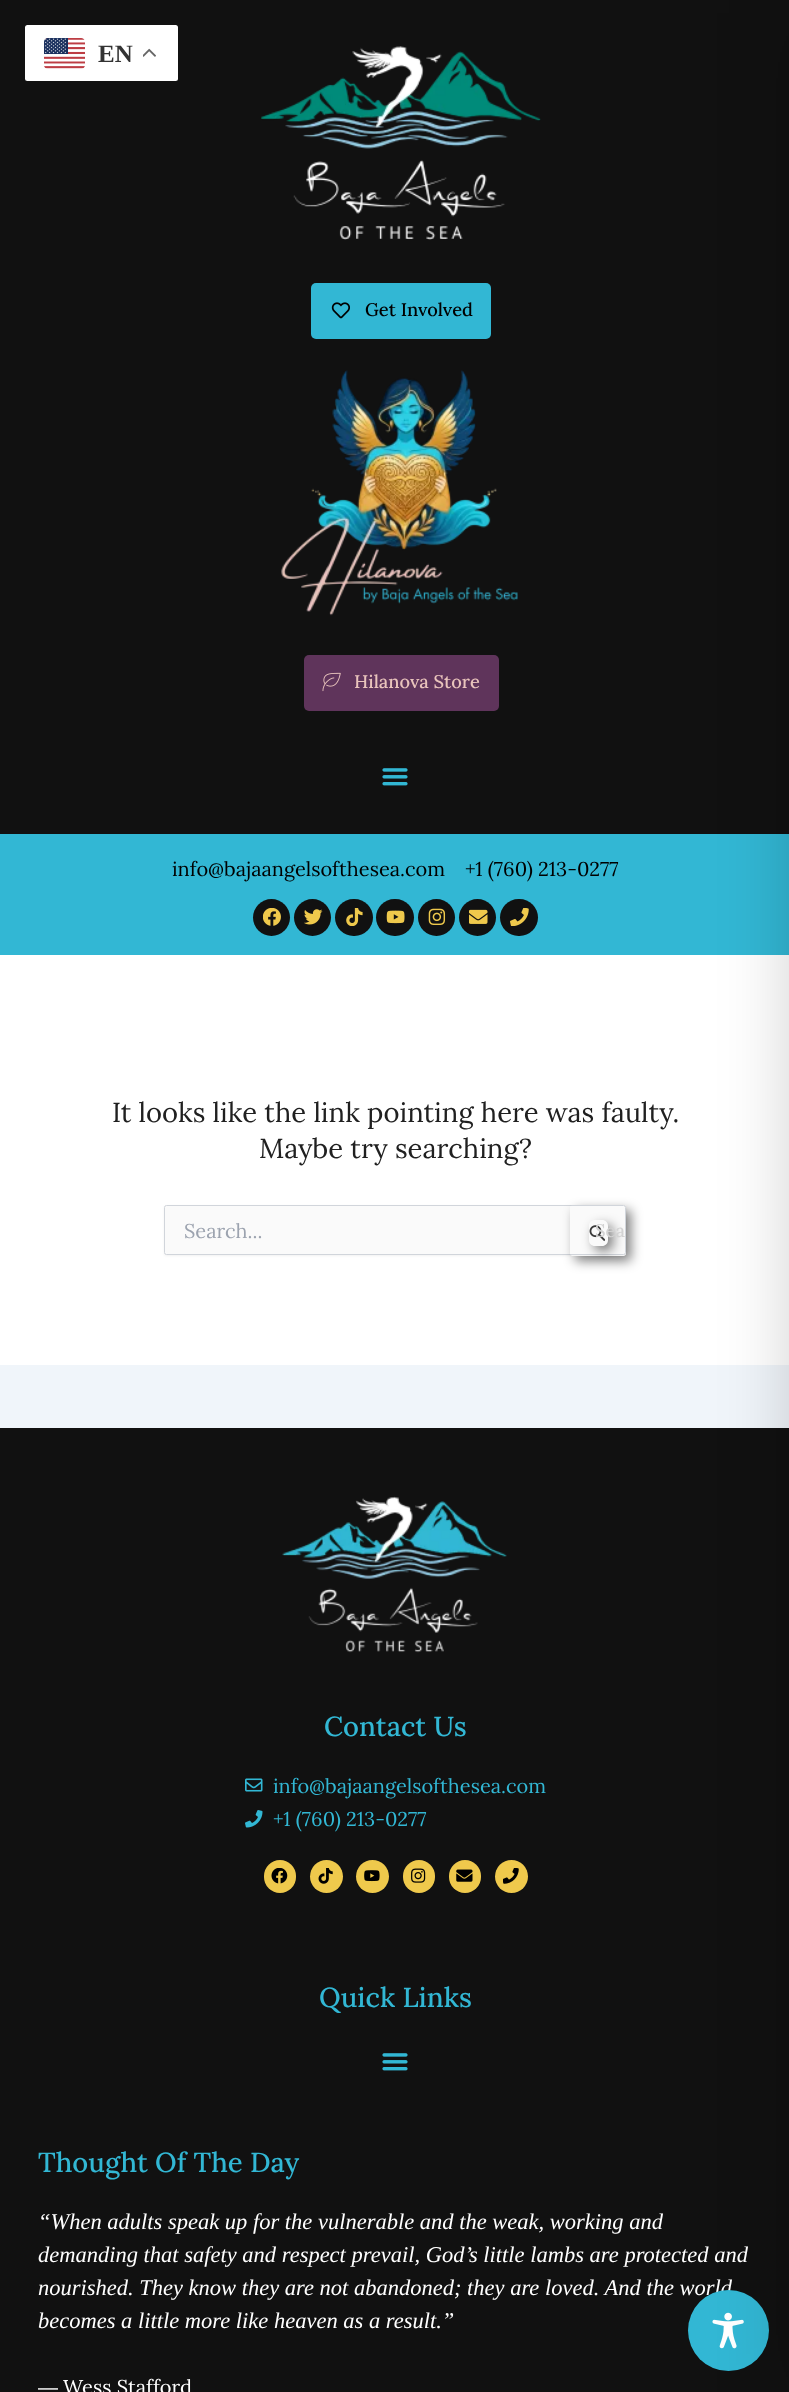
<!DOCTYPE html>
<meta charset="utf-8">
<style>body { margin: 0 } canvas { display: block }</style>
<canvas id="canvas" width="789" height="2392"></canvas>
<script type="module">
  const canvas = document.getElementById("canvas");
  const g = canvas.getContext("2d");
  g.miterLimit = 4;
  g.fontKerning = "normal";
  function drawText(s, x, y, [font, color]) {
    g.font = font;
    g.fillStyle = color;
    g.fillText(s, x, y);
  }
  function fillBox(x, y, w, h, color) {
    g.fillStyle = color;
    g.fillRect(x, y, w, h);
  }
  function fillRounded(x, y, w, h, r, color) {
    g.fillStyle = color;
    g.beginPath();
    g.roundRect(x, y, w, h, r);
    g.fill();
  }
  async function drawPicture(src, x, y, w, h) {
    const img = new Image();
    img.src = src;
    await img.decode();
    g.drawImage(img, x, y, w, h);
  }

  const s1 = ["bold 25px Liberation Serif", "#333333"];
  const s2 = ["italic 22.5px Liberation Serif", "#FFFFFF"];
  const s3 = ["500 18.25px Lora", "#000000"];
  const s4 = ["500 18.25px Lora", "#E9C4BC"];
  const s5 = ["20px Lora", "#000000"];
  const s6 = ["27.4px Lora", "#202020"];
  const s7 = ["20px Lora", "#9CA3AF"];
  const s8 = ["500 18.25px Lora", "#D3D3D3"];
  const s9 = ["500 27.5px Lora", "#32B7D4"];
  const s10 = ["20px Lora", "#32B7D4"];
  const s11 = ["20px Liberation Sans", "#FFFFFF"];
  const s12 = ["20px Lora", "#FFFFFF"];

  fillBox(0, 0, 789, 2392, "#F0F5FA");
  fillBox(0, 0, 789, 834, "#111111");
  fillRounded(25, 25, 153, 56, 2.5, "#FFFFFF");
  await drawPicture("pic1.png", 44, 38, 41, 31);
  drawText("EN", 98, 62, s1);
  await drawPicture("pic2.png", 143, 48, 13, 9);
  fillBox(0, 834, 789, 121, "#32B7D4");
  fillBox(0, 955, 789, 410, "#FFFFFF");
  fillBox(0, 1428, 789, 964, "#111111");
  drawText("nourished. They know they are not abandoned; they are loved. And the world", 38, 2295, s2);
  g.fillStyle = "#32B7D4";
  g.beginPath();
  g.arc(728.5, 2330.5, 40.5, 0, Math.PI * 2);
  g.fill();
  await drawPicture("pic25.png", 712, 2312, 32, 37);
  g.fillStyle = "rgba(0, 0, 0, 0.2)";
  g.filter = "blur(37.5px)";
  g.beginPath();
  g.rect(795, 13, 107, 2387);
  g.fill();
  g.filter = "none";
  await drawPicture("pic3.png", 261, 46, 280, 194);
  fillRounded(311, 283, 180, 56, 5, "#32B7D4");
  await drawPicture("pic4.png", 331, 302, 19, 17);
  drawText("Get Involved", 365, 316, s3);
  await drawPicture("pic5.png", 281, 370, 237, 246);
  fillRounded(304, 655, 195, 56, 5, "#5F345B");
  await drawPicture("pic6.png", 322, 672, 19, 20);
  drawText("Hilanova Store", 354, 688, s4);
  await drawPicture("pic7.png", 382, 768, 26, 18);
  drawText("info@bajaangelsofthesea.com", 172, 876, s5);
  drawText("+1 (760) 213-0277", 465, 876, s5);
  g.fillStyle = "#111111";
  g.beginPath();
  g.arc(271.5, 917.5, 18.5, 0, Math.PI * 2);
  g.fill();
  await drawPicture("pic8.png", 263, 908, 18, 18);
  g.beginPath();
  g.arc(312.5, 917.5, 18.5, 0, Math.PI * 2);
  g.fill();
  await drawPicture("pic9.png", 304, 909, 19, 16);
  fillRounded(335, 899, 38, 37, 18.5, "#111111");
  await drawPicture("pic10.png", 346, 908, 17, 18);
  fillRounded(376, 899, 38, 37, 18.5, "#111111");
  await drawPicture("pic11.png", 386, 910, 19, 14);
  g.beginPath();
  g.arc(436.5, 917.5, 18.5, 0, Math.PI * 2);
  g.fill();
  await drawPicture("pic12.png", 428, 908, 18, 17);
  g.beginPath();
  g.arc(477.5, 917.5, 18.5, 0, Math.PI * 2);
  g.fill();
  await drawPicture("pic13.png", 469, 909, 19, 15);
  fillRounded(500, 899, 38, 37, 18.5, "#111111");
  await drawPicture("pic14.png", 510, 908, 19, 18);
  drawText("It looks like the link pointing here was faulty.", 112, 1122, s6);
  drawText("Maybe try searching?", 259, 1158, s6);
  g.fillStyle = "rgba(0, 0, 0, 0.05)";
  g.filter = "blur(1px)";
  g.beginPath();
  g.roundRect(164, 1206, 462, 50, 2.5);
  g.fill();
  g.filter = "none";
  g.fillStyle = "#FAFAFA";
  g.beginPath();
  g.roundRect(164.5, 1205.5, 461, 49, 2);
  g.fill();
  g.strokeStyle = "#D1D5DB";
  g.stroke();
  drawText("Search...", 184, 1238, s7);
  g.save();
  g.beginPath();
  g.moveTo(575, 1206);
  g.lineTo(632, 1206);
  g.lineTo(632, 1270);
  g.lineTo(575, 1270);
  g.closePath();
  g.moveTo(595, 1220);
  g.lineTo(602, 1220);
  g.bezierCurveTo(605.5, 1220, 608, 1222.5, 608, 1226);
  g.lineTo(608, 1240);
  g.bezierCurveTo(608, 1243.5, 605.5, 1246, 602, 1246);
  g.lineTo(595, 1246);
  g.bezierCurveTo(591.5, 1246, 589, 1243.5, 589, 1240);
  g.lineTo(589, 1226);
  g.bezierCurveTo(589, 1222.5, 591.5, 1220, 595, 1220);
  g.closePath();
  g.clip("evenodd");
  g.fillStyle = "rgba(0, 0, 0, 0.5)";
  g.filter = "blur(6px)";
  g.beginPath();
  g.roundRect(594, 1225, 19, 26, 6);
  g.fill();
  g.filter = "none";
  g.restore();
  await drawPicture("pic15.png", 589, 1225, 16, 17);
  g.save();
  g.beginPath();
  g.moveTo(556, 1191);
  g.lineTo(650, 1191);
  g.lineTo(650, 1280);
  g.lineTo(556, 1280);
  g.closePath();
  g.moveTo(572.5, 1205);
  g.lineTo(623.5, 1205);
  g.bezierCurveTo(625, 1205, 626, 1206, 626, 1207.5);
  g.lineTo(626, 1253.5);
  g.bezierCurveTo(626, 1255, 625, 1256, 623.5, 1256);
  g.lineTo(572.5, 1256);
  g.bezierCurveTo(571, 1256, 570, 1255, 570, 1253.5);
  g.lineTo(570, 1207.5);
  g.bezierCurveTo(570, 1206, 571, 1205, 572.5, 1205);
  g.closePath();
  g.clip("evenodd");
  g.fillStyle = "rgba(0, 0, 0, 0.5)";
  g.filter = "blur(6px)";
  g.beginPath();
  g.roundRect(575, 1210, 56, 51, 2.5);
  g.fill();
  g.filter = "none";
  g.restore();
  drawText("Sea", 595, 1237, s8);
  await drawPicture("pic16.png", 282, 1496, 225, 157);
  drawText("Contact Us", 324, 1736, s9);
  await drawPicture("pic17.png", 245, 1778, 18, 14);
  drawText("info@bajaangelsofthesea.com", 273, 1793, s10);
  await drawPicture("pic18.png", 245, 1810, 18, 18);
  drawText("+1 (760) 213-0277", 273, 1826, s10);
  fillRounded(264, 1860, 32, 33, 16, "#EFC94C");
  await drawPicture("pic19.png", 271, 1868, 17, 16);
  g.beginPath();
  g.arc(326.5, 1876.5, 16.5, 0, Math.PI * 2);
  g.fill();
  await drawPicture("pic20.png", 318, 1868, 15, 16);
  g.beginPath();
  g.arc(372.5, 1876.5, 16.5, 0, Math.PI * 2);
  g.fill();
  await drawPicture("pic21.png", 364, 1870, 16, 12);
  fillRounded(403, 1860, 32, 33, 16, "#EFC94C");
  await drawPicture("pic22.png", 411, 1868, 15, 15);
  fillRounded(449, 1860, 32, 33, 16, "#EFC94C");
  await drawPicture("pic23.png", 456, 1869, 17, 13);
  g.beginPath();
  g.arc(511.5, 1876.5, 16.5, 0, Math.PI * 2);
  g.fill();
  await drawPicture("pic24.png", 503, 1868, 16, 16);
  drawText("Quick Links", 319, 2007, s9);
  await drawPicture("pic7.png", 382, 2053, 26, 18);
  drawText("Thought Of The Day", 38, 2172, s9);
  drawText("“When adults speak up for the vulnerable and the weak, working and", 38, 2229, s2);
  drawText("demanding that safety and respect prevail, God’s little lambs are protected and", 38, 2262, s2);
  drawText("becomes a little more like heaven as a result.”", 38, 2328, s2);
  drawText("―", 38, 2394, s11);
  drawText("Wess Stafford", 63, 2394, s12);
</script>
